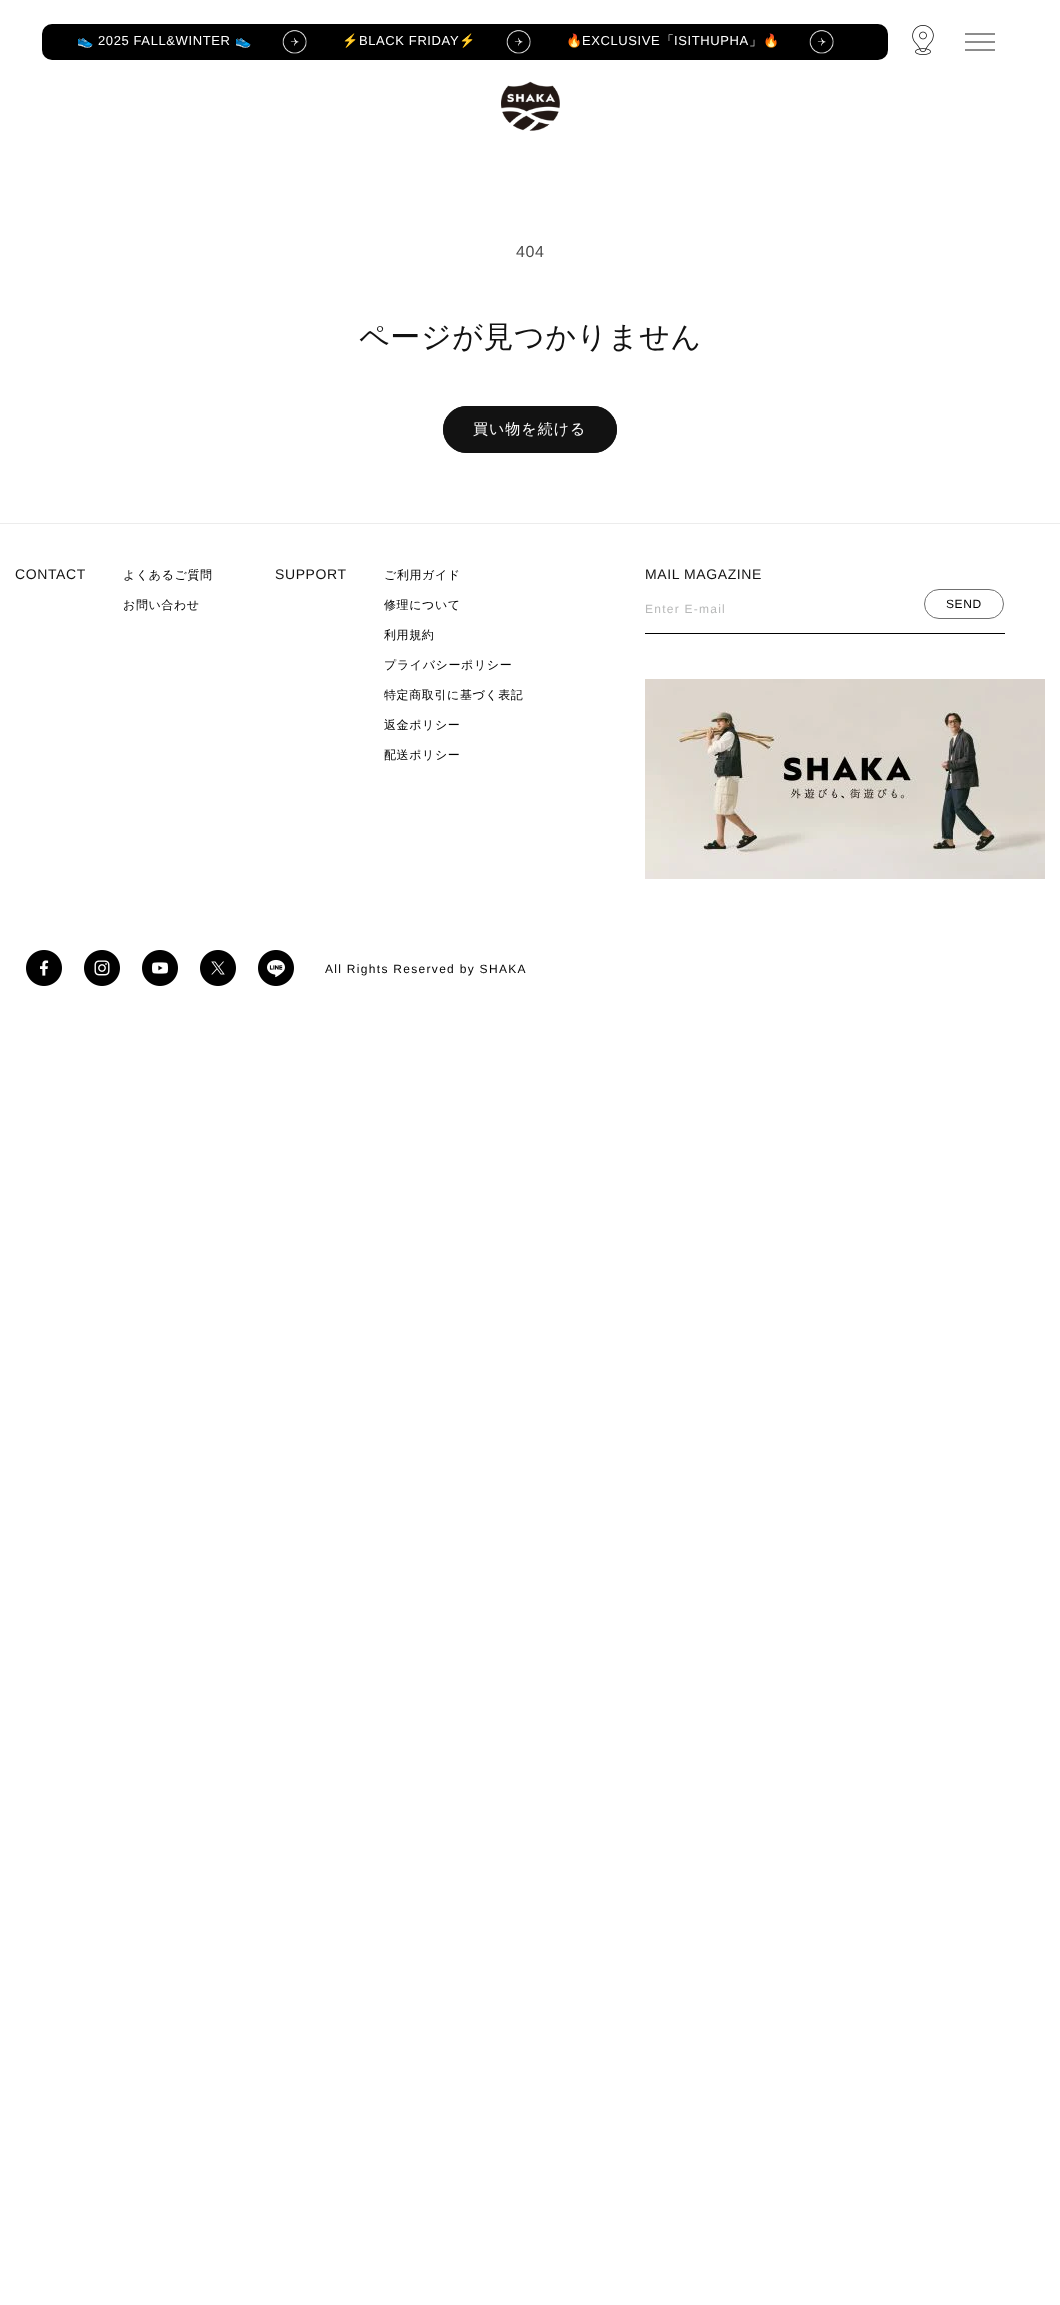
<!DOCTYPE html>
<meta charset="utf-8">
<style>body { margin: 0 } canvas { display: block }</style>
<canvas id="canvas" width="1060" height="2305"></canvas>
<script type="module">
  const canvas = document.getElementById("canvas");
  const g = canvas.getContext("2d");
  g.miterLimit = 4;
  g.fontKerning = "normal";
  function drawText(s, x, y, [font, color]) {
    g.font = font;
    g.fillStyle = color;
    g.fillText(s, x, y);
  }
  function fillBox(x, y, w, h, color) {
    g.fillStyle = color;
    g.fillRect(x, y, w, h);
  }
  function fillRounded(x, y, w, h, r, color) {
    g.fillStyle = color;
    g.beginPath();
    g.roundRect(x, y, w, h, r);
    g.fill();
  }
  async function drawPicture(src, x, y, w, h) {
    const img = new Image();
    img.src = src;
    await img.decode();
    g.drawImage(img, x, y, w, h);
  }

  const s1 = ["13px Noto Color Emoji", "#FFFFFF"];
  const s2 = ["13px Liberation Sans", "#FFFFFF"];
  const s3 = ["500 13px WenQuanYi Zen Hei", "#FFFFFF"];
  const s4 = ["16px Liberation Sans", "#4D4D4D"];
  const s5 = ["500 30px WenQuanYi Zen Hei", "#121212"];
  const s6 = ["500 15px WenQuanYi Zen Hei", "#FFFFFF"];
  const s7 = ["14px Liberation Sans", "#121212"];
  const s8 = ["500 12px WenQuanYi Zen Hei", "#000000"];
  const s9 = ["12px Liberation Sans", "#B8B9B9"];
  const s10 = ["12px Liberation Sans", "#000000"];

  fillBox(0, 0, 1060, 2305, "#FFFFFF");
  fillRounded(42, 24, 846, 36, 10, "#000000");
  g.letterSpacing = "0.6px";
  drawText("👟", 77, 45, s1);
  drawText("2025 FALL&WINTER", 98, 45, s2);
  drawText("👟", 235, 45, s1);
  await drawPicture("pic1.png", 282, 30, 25, 24);
  drawText("⚡", 342, 45, s1);
  drawText("BLACK FRIDAY", 359, 45, s2);
  drawText("⚡", 459, 45, s1);
  await drawPicture("pic2.png", 506, 30, 25, 24);
  drawText("🔥", 566, 45, s1);
  drawText("EXCLUSIVE", 582, 45, s2);
  drawText("「", 661, 45, s3);
  drawText("ISITHUPHA", 674, 45, s2);
  drawText("」", 749, 45, s3);
  drawText("🔥", 763, 45, s1);
  await drawPicture("pic2.png", 809, 30, 25, 24);
  await drawPicture("pic3.png", 912, 25, 22, 30);
  g.beginPath();
  g.moveTo(965, 42);
  g.lineTo(995, 42);
  g.moveTo(965, 50);
  g.lineTo(995, 50);
  g.moveTo(965, 34);
  g.lineTo(995, 34);
  g.strokeStyle = "#010101";
  g.lineWidth = 0.9;
  g.stroke();
  await drawPicture("pic4.png", 501, 81, 59, 50);
  drawText("404", 516, 257, s4);
  drawText("ページが見つかりません", 359, 347, s5);
  fillRounded(443, 406, 174, 47, 23.5, "#121212");
  g.beginPath();
  g.roundRect(443.5, 406.5, 173, 46, 23);
  g.strokeStyle = "#121212";
  g.lineWidth = 1;
  g.stroke();
  g.letterSpacing = "1px";
  drawText("買い物を続ける", 473, 434, s6);
  fillBox(0, 523, 1060, 1, "#ECECEC");
  g.letterSpacing = "0.6px";
  drawText("CONTACT", 15, 579, s7);
  drawText("よくあるご質問", 123, 579, s8);
  drawText("お問い合わせ", 123, 609, s8);
  drawText("SUPPORT", 275, 579, s7);
  drawText("ご利用ガイド", 384, 579, s8);
  drawText("修理について", 384, 609, s8);
  drawText("利用規約", 384, 639, s8);
  drawText("プライバシーポリシー", 384, 669, s8);
  drawText("特定商取引に基づく表記", 384, 699, s8);
  drawText("返金ポリシー", 384, 729, s8);
  drawText("配送ポリシー", 384, 759, s8);
  drawText("MAIL MAGAZINE", 645, 579, s7);
  fillBox(645, 633, 360, 1, "#000000");
  g.letterSpacing = "1.25px";
  drawText("Enter E-mail", 645, 613, s9);
  g.beginPath();
  g.roundRect(924.5, 589.5, 79, 29, 14.5);
  g.strokeStyle = "#707070";
  g.stroke();
  g.letterSpacing = "0.6px";
  drawText("SEND", 946, 608, s10);
  await drawPicture("pic5.png", 645, 679, 400, 200);
  await drawPicture("pic6.png", 26, 950, 36, 36);
  await drawPicture("pic7.png", 84, 950, 36, 36);
  await drawPicture("pic8.png", 142, 950, 36, 36);
  await drawPicture("pic9.png", 200, 950, 36, 36);
  await drawPicture("pic10.png", 258, 950, 36, 36);
  g.letterSpacing = "1.3px";
  drawText("All Rights Reserved by SHAKA", 325, 973, s10);
</script>
